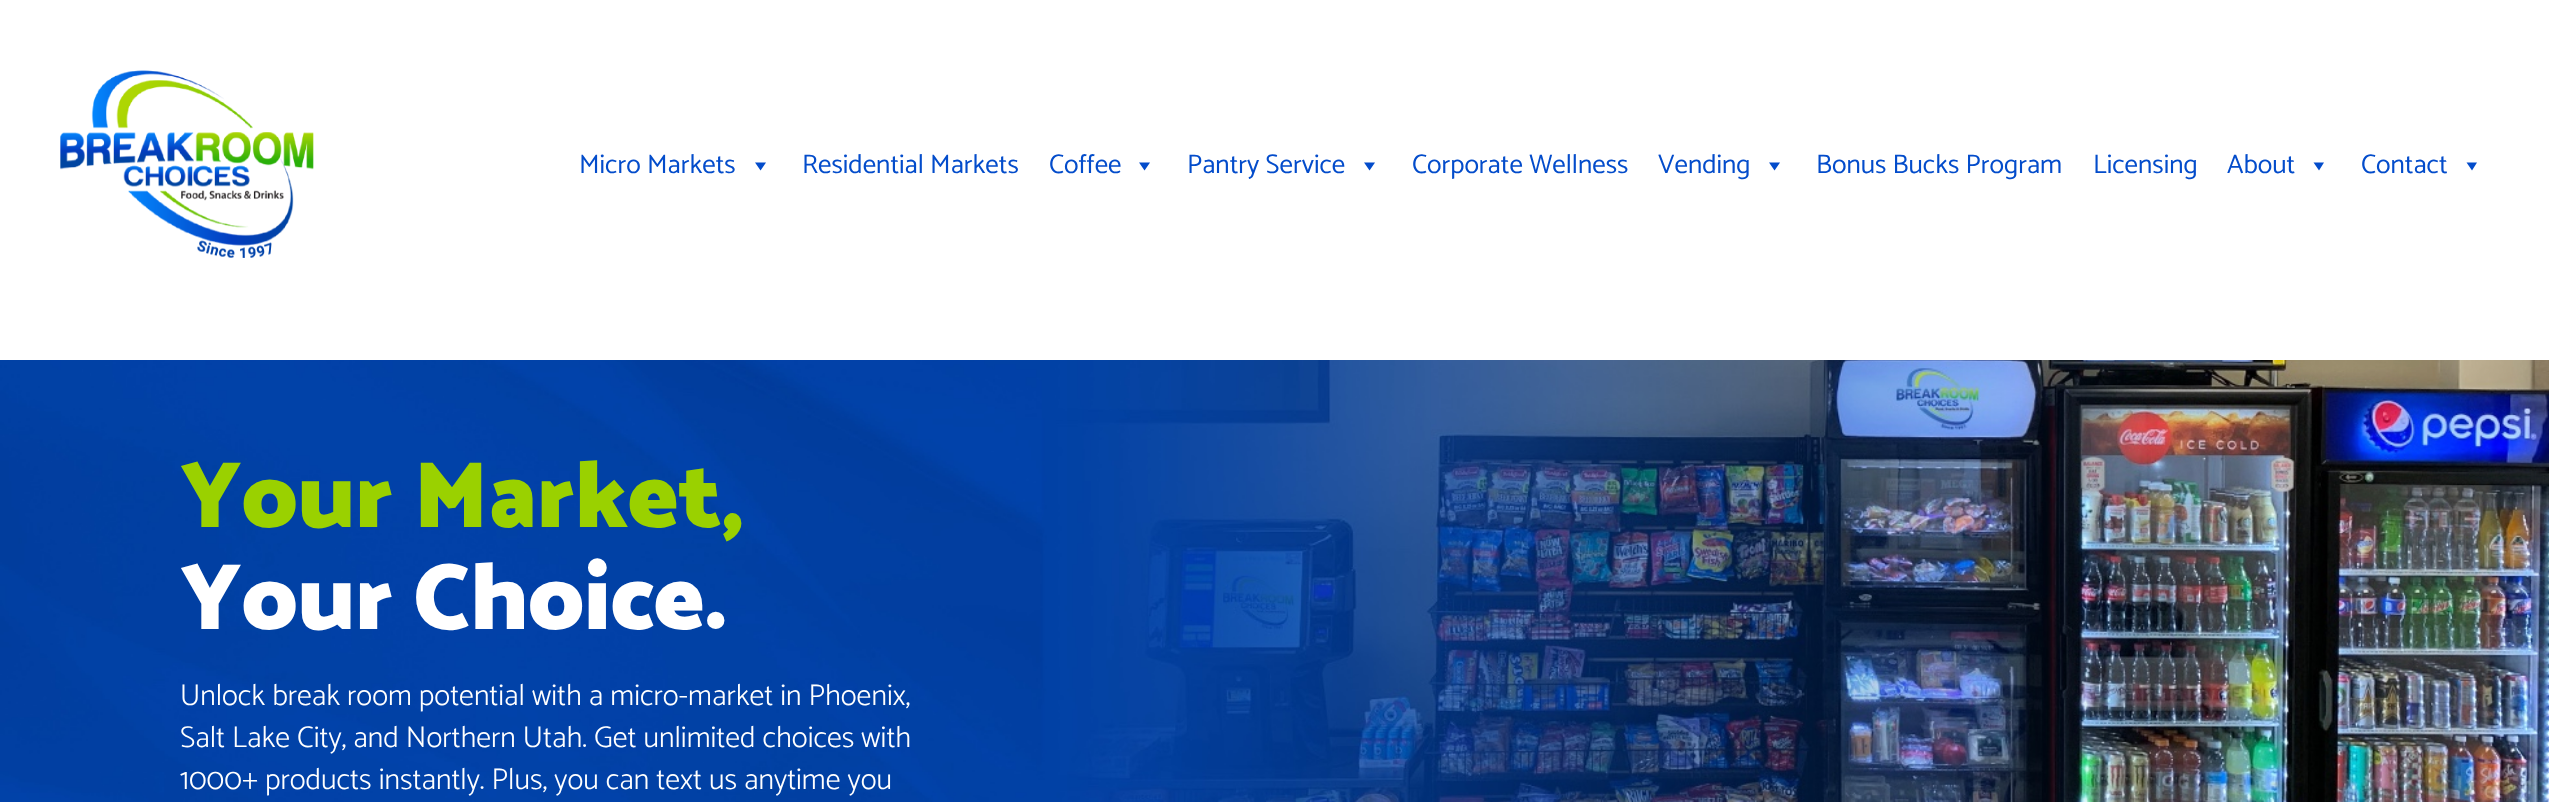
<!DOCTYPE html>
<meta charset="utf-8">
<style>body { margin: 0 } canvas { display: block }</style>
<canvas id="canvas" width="2549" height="802"></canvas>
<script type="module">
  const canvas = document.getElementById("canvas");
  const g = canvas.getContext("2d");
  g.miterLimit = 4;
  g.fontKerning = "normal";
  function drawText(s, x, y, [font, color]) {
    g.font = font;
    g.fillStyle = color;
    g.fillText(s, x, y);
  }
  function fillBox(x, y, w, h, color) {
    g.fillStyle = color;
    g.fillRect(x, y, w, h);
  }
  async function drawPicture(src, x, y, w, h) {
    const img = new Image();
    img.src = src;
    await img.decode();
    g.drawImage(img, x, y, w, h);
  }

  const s1 = ["27px Catamaran", "#034CCB"];
  const s2 = ["900 94.5px Catamaran", "#9AD100"];
  const s3 = ["900 94.5px Catamaran", "#FFFFFF"];
  const s4 = ["300 30px Catamaran", "#FFFFFF"];

  fillBox(0, 0, 2549, 802, "#FFFFFF");
  await drawPicture("pic1.png", 60, 70, 254, 188);
  drawText("Micro Markets", 579, 173, s1);
  g.beginPath();
  g.moveTo(766, 162.5);
  g.lineTo(760.5, 170.5);
  g.lineTo(755, 162.5);
  g.closePath();
  g.fill();
  drawText("Residential Markets", 802, 173, s1);
  drawText("Coffee", 1049, 173, s1);
  g.beginPath();
  g.moveTo(1150, 162.5);
  g.lineTo(1144.5, 170.5);
  g.lineTo(1139, 162.5);
  g.closePath();
  g.fill();
  drawText("Pantry Service", 1187, 173, s1);
  g.beginPath();
  g.moveTo(1375, 162.5);
  g.lineTo(1369.5, 170.5);
  g.lineTo(1364, 162.5);
  g.closePath();
  g.fill();
  drawText("Corporate Wellness", 1412, 173, s1);
  drawText("Vending", 1658, 173, s1);
  g.beginPath();
  g.moveTo(1780, 162.5);
  g.lineTo(1774.5, 170.5);
  g.lineTo(1769, 162.5);
  g.closePath();
  g.fill();
  drawText("Bonus Bucks Program", 1816, 173, s1);
  drawText("Licensing", 2093, 173, s1);
  drawText("About", 2227, 173, s1);
  g.beginPath();
  g.moveTo(2324, 162.5);
  g.lineTo(2319, 170.5);
  g.lineTo(2313.5, 162.5);
  g.closePath();
  g.fill();
  drawText("Contact", 2361, 173, s1);
  g.beginPath();
  g.moveTo(2477, 162.5);
  g.lineTo(2472, 170.5);
  g.lineTo(2466.5, 162.5);
  g.closePath();
  g.fill();
  await drawPicture("pic2.png", 0, 360, 2549, 442);
  drawText("Your Market,", 180, 527, s2);
  drawText("Your Choice.", 180, 629, s3);
  drawText("Unlock break room potential with a micro-market in Phoenix,", 180, 705, s4);
  drawText("Salt Lake City, and Northern Utah. Get unlimited choices with", 180, 747, s4);
  drawText("1000+ products instantly. Plus, you can text us anytime you", 180, 789, s4);
</script>
